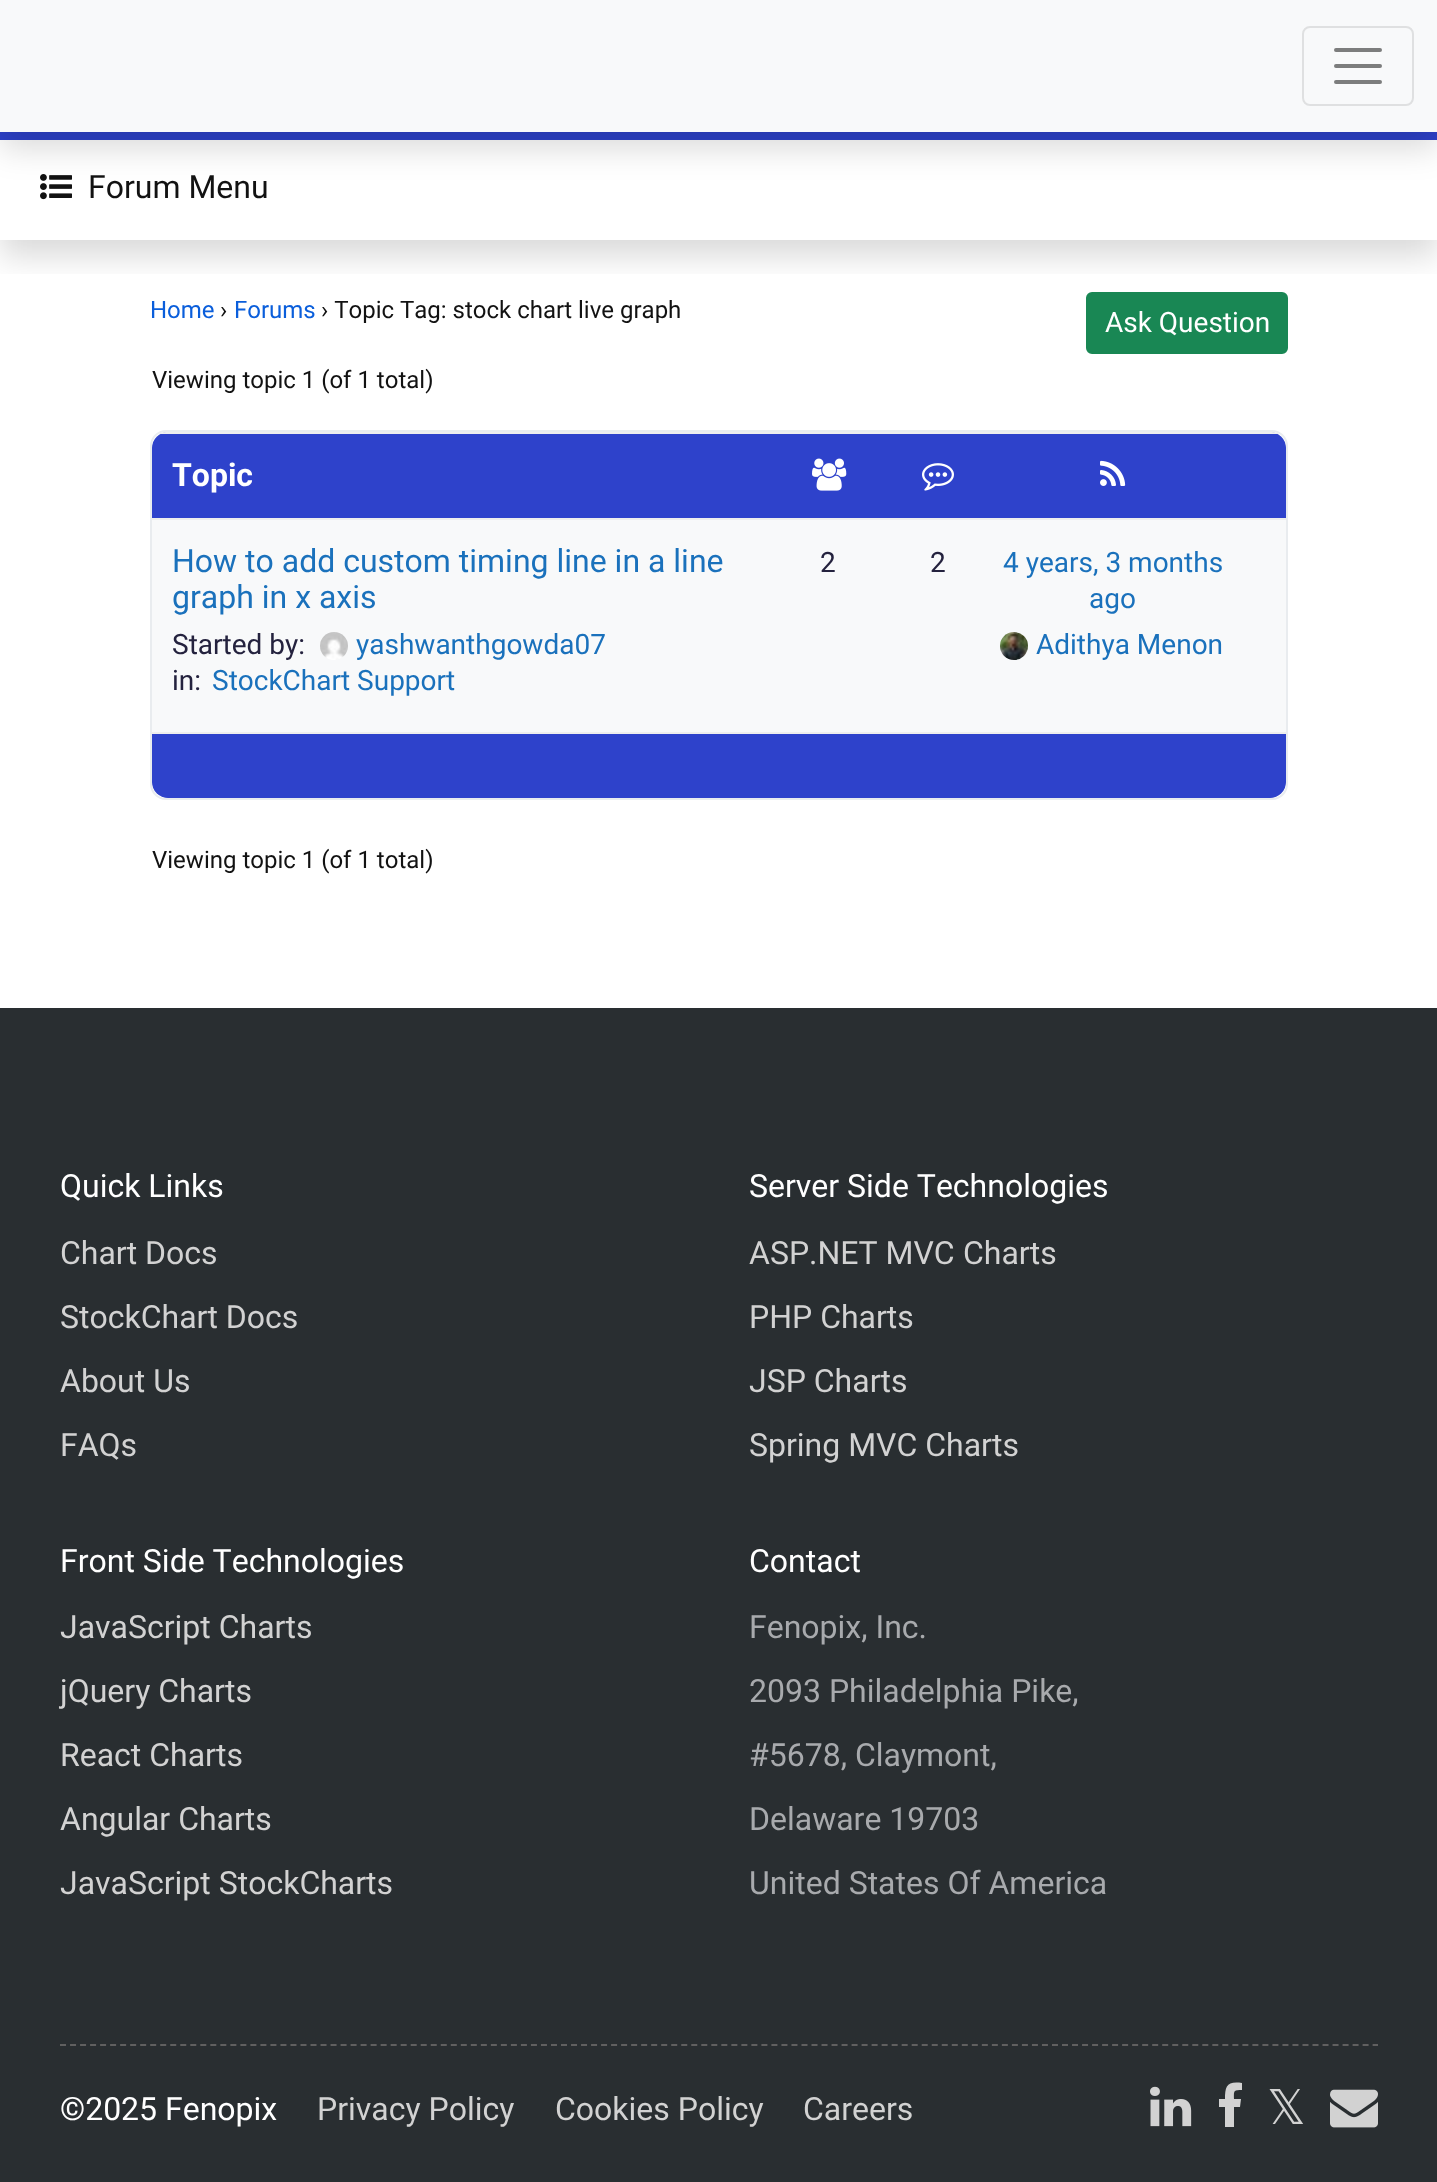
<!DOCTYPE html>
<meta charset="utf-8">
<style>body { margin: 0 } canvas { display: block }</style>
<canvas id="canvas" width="1437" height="2182"></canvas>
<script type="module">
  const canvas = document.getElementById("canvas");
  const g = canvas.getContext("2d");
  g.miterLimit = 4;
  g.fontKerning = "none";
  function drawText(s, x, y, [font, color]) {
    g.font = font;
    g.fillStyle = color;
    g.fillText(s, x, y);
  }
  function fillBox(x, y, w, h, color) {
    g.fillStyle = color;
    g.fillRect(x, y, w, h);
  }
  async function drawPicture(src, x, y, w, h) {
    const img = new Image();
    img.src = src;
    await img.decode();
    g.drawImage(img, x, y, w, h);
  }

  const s1 = ["32px Roboto", "#121212"];
  const s2 = ["24px Roboto", "#0A5EDB"];
  const s3 = ["24px Roboto", "#121212"];
  const s4 = ["28px Roboto", "#FFFFFF"];
  const s5 = ["bold 32px Roboto", "#FFFFFF"];
  const s6 = ["32px Roboto", "#1A71BC"];
  const s7 = ["28px Roboto", "#24223E"];
  const s8 = ["28px Roboto", "#1A71BC"];
  const s9 = ["32px Roboto", "#FFFFFF"];
  const s10 = ["32px Roboto", "#D2D2D2"];
  const s11 = ["32px Roboto", "#A8AAAD"];
  const s12 = ["48px DejaVu Sans", "#D2D2D2"];

  fillBox(0, 0, 1437, 2182, "#FFFFFF");
  g.fillStyle = "#198754";
  g.beginPath();
  g.roundRect(1087, 293, 200, 60, 5);
  g.fill();
  g.strokeStyle = "#198754";
  g.lineWidth = 2;
  g.stroke();
  g.save();
  g.beginPath();
  g.rect(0, 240, 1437, 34);
  g.clip();
  g.fillStyle = "rgba(0, 0, 0, 0.15)";
  g.filter = "blur(16px)";
  g.beginPath();
  g.rect(0, 148, 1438, 108);
  g.fill();
  g.filter = "none";
  g.restore();
  fillBox(0, 132, 1437, 8, "#2E42CB");
  await drawPicture("pic1.png", 40, 174, 32, 26);
  g.fillStyle = "rgba(0, 0, 0, 0.15)";
  g.filter = "blur(16px)";
  g.beginPath();
  g.rect(0, 16, 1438, 132);
  g.fill();
  g.filter = "none";
  fillBox(0, 0, 1437, 132, "#F8F9FA");
  g.beginPath();
  g.roundRect(1303, 27, 110, 78, 7);
  g.strokeStyle = "#DFE0E1";
  g.stroke();
  g.beginPath();
  g.moveTo(1336, 50);
  g.lineTo(1380, 50);
  g.moveTo(1336, 66);
  g.lineTo(1380, 66);
  g.moveTo(1336, 82);
  g.lineTo(1380, 82);
  g.strokeStyle = "#7C7D7D";
  g.lineWidth = 4;
  g.lineCap = "round";
  g.stroke();
  drawText("Forum Menu", 88, 198, s1);
  drawText("Home", 150, 318, s2);
  drawText("›", 220, 318, s3);
  drawText("Forums", 234, 318, s2);
  drawText("› Topic Tag: stock chart live graph", 321, 318, s3);
  drawText("Ask Question", 1105, 332, s4);
  drawText("Viewing topic 1 (of 1 total)", 152, 388, s3);
  g.beginPath();
  g.roundRect(151, 431, 1136, 368, 15);
  g.strokeStyle = "#E9ECEF";
  g.lineWidth = 2;
  g.stroke();
  g.save();
  g.beginPath();
  g.roundRect(152, 432, 1134, 366, 14);
  g.clip();
  g.fillStyle = "#2E42CB";
  g.beginPath();
  g.roundRect(152, 432, 1134, 86, [16, 16, 0, 0]);
  g.fill();
  fillBox(160, 432, 1118, 2, "#EEEEEE");
  g.restore();
  drawText("Topic", 172, 486, s5);
  await drawPicture("pic2.png", 812, 458, 35, 33);
  await drawPicture("pic3.png", 922, 463, 32, 28);
  await drawPicture("pic4.png", 1100, 460, 26, 26);
  fillBox(152, 520, 1134, 212, "#F8F9FA");
  fillBox(152, 518, 1134, 2, "#EEEEEE");
  drawText("How to add custom timing line in a line", 172, 572, s6);
  drawText("graph in x axis", 172, 608, s6);
  drawText("Started by:", 172, 654, s7);
  await drawPicture("pic5.png", 320, 632, 28, 28);
  drawText("yashwanthgowda07", 356, 654, s8);
  drawText("in:", 172, 690, s7);
  drawText("StockChart Support", 212, 690, s8);
  drawText("2", 820, 572, s7);
  drawText("2", 930, 572, s7);
  drawText("4 years, 3 months", 1003, 572, s8);
  drawText("ago", 1089, 608, s8);
  await drawPicture("pic6.png", 1000, 632, 28, 28);
  drawText("Adithya Menon", 1036, 654, s8);
  g.save();
  g.beginPath();
  g.roundRect(152, 432, 1134, 366, 14);
  g.clip();
  g.fillStyle = "#2E42CB";
  g.beginPath();
  g.roundRect(152, 732, 1134, 66, [0, 0, 16, 16]);
  g.fill();
  g.restore();
  fillBox(152, 732, 1134, 2, "#EEEEEE");
  drawText("Viewing topic 1 (of 1 total)", 152, 868, s3);
  fillBox(0, 1008, 1437, 1174, "#292E31");
  drawText("Quick Links", 60, 1197, s9);
  drawText("Chart Docs", 60, 1264, s10);
  drawText("StockChart Docs", 60, 1328, s10);
  drawText("About Us", 60, 1392, s10);
  drawText("FAQs", 60, 1456, s10);
  drawText("Server Side Technologies", 749, 1197, s9);
  drawText("ASP.NET MVC", 749, 1264, s10);
  drawText("Charts", 963, 1264, s10);
  drawText("PHP Charts", 749, 1328, s10);
  drawText("JSP Charts", 749, 1392, s10);
  drawText("Spring MVC Charts", 749, 1456, s10);
  drawText("Front Side Technologies", 60, 1572, s9);
  drawText("JavaScript Charts", 60, 1638, s10);
  drawText("jQuery Charts", 60, 1702, s10);
  drawText("React Charts", 60, 1766, s10);
  drawText("Angular Charts", 60, 1830, s10);
  drawText("JavaScript StockCharts", 60, 1894, s10);
  drawText("Contact", 749, 1572, s9);
  drawText("Fenopix, Inc.", 749, 1638, s11);
  drawText("2093 Philadelphia Pike,", 749, 1702, s11);
  drawText("#5678, Claymont,", 749, 1766, s11);
  drawText("Delaware 19703", 749, 1830, s11);
  drawText("United States Of America", 749, 1894, s11);
  g.beginPath();
  g.moveTo(60, 2045);
  g.lineTo(1378, 2045);
  g.strokeStyle = "#606060";
  g.lineCap = "butt";
  g.setLineDash([6, 4.02]);
  g.stroke();
  drawText("©2025 Fenopix", 60, 2120, s9);
  drawText("Privacy Policy", 317, 2120, s10);
  drawText("Cookies Policy", 555, 2120, s10);
  drawText("Careers", 803, 2120, s10);
  await drawPicture("pic7.png", 1150, 2086, 42, 41);
  g.beginPath();
  g.moveTo(1242, 2083);
  g.lineTo(1242, 2090);
  g.bezierCurveTo(1233, 2090, 1234, 2091, 1234, 2099);
  g.lineTo(1241, 2099);
  g.lineTo(1240, 2107);
  g.lineTo(1234, 2107);
  g.lineTo(1234, 2127);
  g.lineTo(1225, 2127);
  g.lineTo(1225, 2107);
  g.lineTo(1219, 2107);
  g.lineTo(1219, 2099);
  g.lineTo(1225, 2099);
  g.bezierCurveTo(1225, 2086, 1227, 2081, 1242, 2083);
  g.closePath();
  g.fill();
  drawText("𝕏", 1267, 2124, s12);
  await drawPicture("pic8.png", 1330, 2089, 48, 39);
</script>
